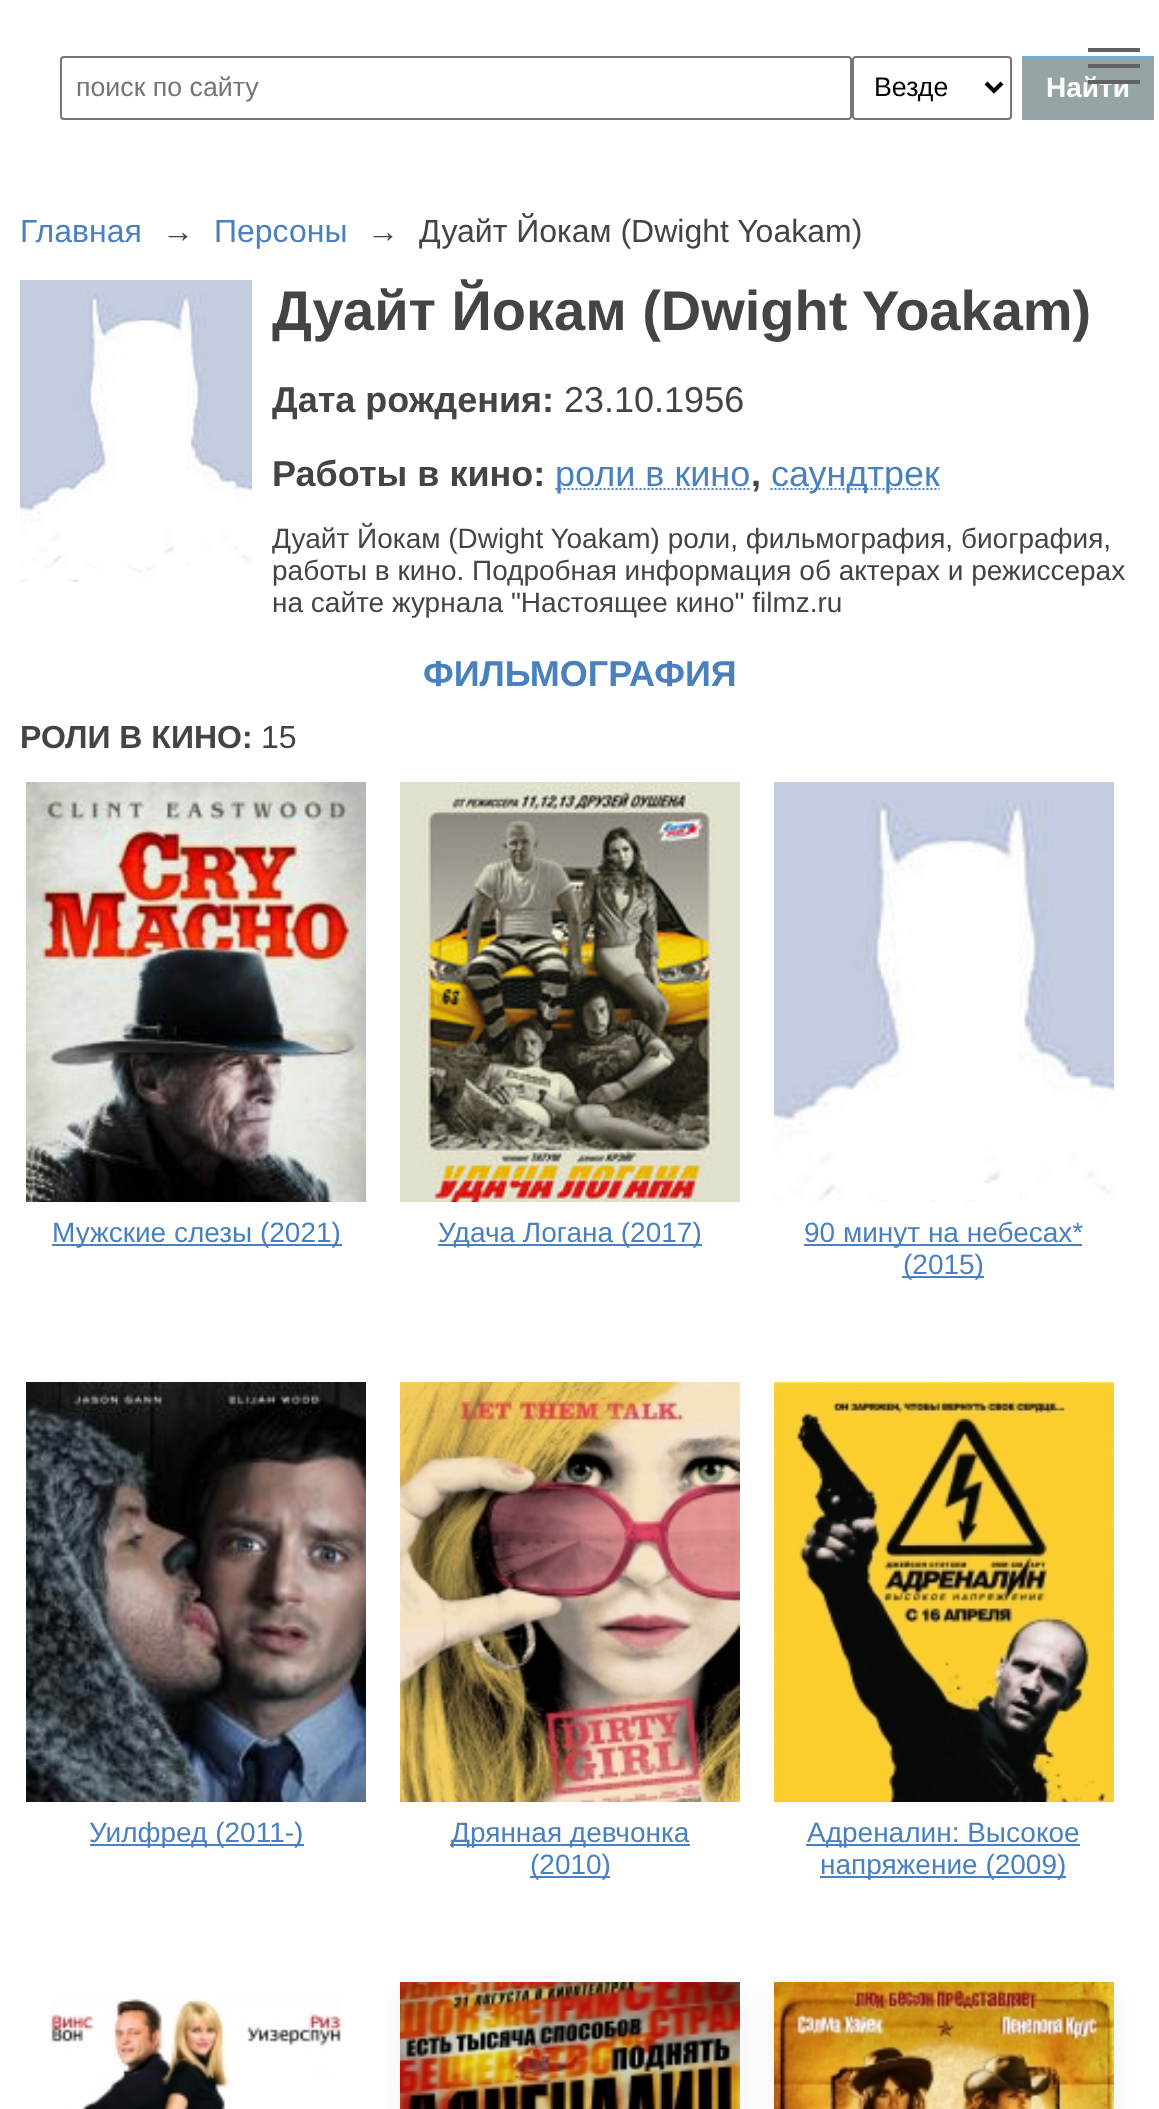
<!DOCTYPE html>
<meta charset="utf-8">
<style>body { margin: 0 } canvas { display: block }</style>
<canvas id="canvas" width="1159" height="2109"></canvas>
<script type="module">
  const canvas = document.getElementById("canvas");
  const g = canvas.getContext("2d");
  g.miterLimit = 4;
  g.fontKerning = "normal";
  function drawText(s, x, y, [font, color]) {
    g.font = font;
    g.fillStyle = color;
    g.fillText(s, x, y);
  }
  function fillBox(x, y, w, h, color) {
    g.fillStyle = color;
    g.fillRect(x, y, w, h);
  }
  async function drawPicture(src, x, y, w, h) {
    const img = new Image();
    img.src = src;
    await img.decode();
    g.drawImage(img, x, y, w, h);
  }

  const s1 = ["bold 28px Liberation Sans", "#FFFFFF"];
  const s2 = ["26.75px Liberation Sans", "#757575"];
  const s3 = ["26.75px Liberation Sans", "#000000"];
  const s4 = ["32px Liberation Sans", "#4A80BE"];
  const s5 = ["32px Liberation Sans", "#444444"];
  const s6 = ["bold 56px Liberation Sans", "#444444"];
  const s7 = ["bold 36px Liberation Sans", "#444444"];
  const s8 = ["36px Liberation Sans", "#444444"];
  const s9 = ["36px Liberation Sans", "#4A80BE"];
  const s10 = ["28px Liberation Sans", "#444444"];
  const s11 = ["bold 36px Liberation Sans", "#4A80BE"];
  const s12 = ["bold 32px Liberation Sans", "#444444"];
  const s13 = ["28px Liberation Sans", "#4A80BE"];

  fillBox(0, 0, 1159, 2109, "#FFFFFF");
  fillBox(1022, 58, 132, 62, "#95A5A6");
  fillBox(1088, 64, 52, 4, "#616161");
  fillBox(1088, 48, 52, 4, "#616161");
  drawText("Найти", 1046, 97, s1);
  fillBox(1088, 80, 52, 4, "#616161");
  g.beginPath();
  g.roundRect(61, 57, 790, 62, 3);
  g.strokeStyle = "#767676";
  g.lineWidth = 2;
  g.stroke();
  drawText("поиск по сайту", 76, 96, s2);
  g.beginPath();
  g.roundRect(853, 57, 158, 62, 3);
  g.stroke();
  g.beginPath();
  g.moveTo(986, 83);
  g.lineTo(994, 91);
  g.lineTo(1002, 83);
  g.strokeStyle = "#000000";
  g.lineWidth = 4;
  g.stroke();
  drawText("Везде", 874, 96, s3);
  fillBox(1022, 56, 132, 2, "#6FB0DB");
  drawText("Главная", 20, 242, s4);
  drawText("→", 162, 242, s5);
  drawText("Персоны", 214, 242, s4);
  drawText("→", 367, 242, s5);
  drawText("Дуайт Йокам (Dwight Yoakam)", 419, 242, s5);
  await drawPicture("pic1.png", 20, 280, 232, 302);
  drawText("Дуайт Йокам (Dwight Yoakam)", 272, 330, s6);
  drawText("Дата рождения:", 272, 412, s7);
  drawText("23.10.1956", 564, 412, s8);
  drawText("Работы в кино:", 272, 486, s7);
  g.beginPath();
  g.moveTo(555.5, 489);
  g.lineTo(750.5, 489);
  g.strokeStyle = "#4A80BE";
  g.lineWidth = 2;
  g.setLineDash([2, 2]);
  g.stroke();
  drawText("роли в кино", 555, 486, s9);
  drawText(",", 751, 486, s7);
  g.beginPath();
  g.moveTo(770.5, 489);
  g.lineTo(939.5, 489);
  g.stroke();
  drawText("саундтрек", 771, 486, s9);
  drawText("Дуайт Йокам (Dwight Yoakam) роли, фильмография, биография,", 272, 548, s10);
  drawText("работы в кино. Подробная информация об актерах и режиссерах", 272, 580, s10);
  drawText("на сайте журнала \"Настоящее кино\" filmz.ru", 272, 612, s10);
  drawText("ФИЛЬМОГРАФИЯ", 423, 686, s11);
  drawText("РОЛИ В КИНО:", 20, 748, s12);
  drawText("15", 261, 748, s5);
  await drawPicture("pic2.png", 26, 782, 340, 420);
  fillBox(52, 1244, 290, 2, "#4A80BE");
  drawText("Мужские слезы (2021)", 52, 1242, s13);
  await drawPicture("pic3.png", 400, 782, 340, 420);
  fillBox(438, 1244, 264, 2, "#4A80BE");
  drawText("Удача Логана (2017)", 438, 1242, s13);
  await drawPicture("pic4.png", 774, 782, 340, 420);
  fillBox(804, 1244, 278, 2, "#4A80BE");
  drawText("90 минут на небесах*", 804, 1242, s13);
  fillBox(902, 1276, 82, 2, "#4A80BE");
  drawText("(2015)", 903, 1274, s13);
  await drawPicture("pic5.png", 26, 1382, 340, 420);
  fillBox(90, 1844, 214, 2, "#4A80BE");
  drawText("Уилфред (2011-)", 89, 1842, s13);
  await drawPicture("pic6.png", 400, 1382, 340, 420);
  fillBox(450, 1844, 240, 2, "#4A80BE");
  drawText("Дрянная девчонка", 451, 1842, s13);
  fillBox(530, 1876, 80, 2, "#4A80BE");
  drawText("(2010)", 530, 1874, s13);
  await drawPicture("pic7.png", 774, 1382, 340, 420);
  fillBox(806, 1844, 274, 2, "#4A80BE");
  drawText("Адреналин: Высокое", 807, 1842, s13);
  fillBox(820, 1876, 246, 2, "#4A80BE");
  drawText("напряжение (2009)", 820, 1874, s13);
  await drawPicture("pic8.png", 50, 1997, 292, 112);
  g.fillStyle = "rgba(0, 0, 0, 0.05)";
  g.filter = "blur(14px)";
  g.beginPath();
  g.rect(400, 1986, 340, 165);
  g.fill();
  g.filter = "none";
  await drawPicture("pic9.png", 400, 1982, 340, 127);
  g.filter = "blur(14px)";
  g.beginPath();
  g.rect(774, 1986, 340, 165);
  g.fill();
  g.filter = "none";
  await drawPicture("pic10.png", 774, 1982, 340, 127);
</script>
